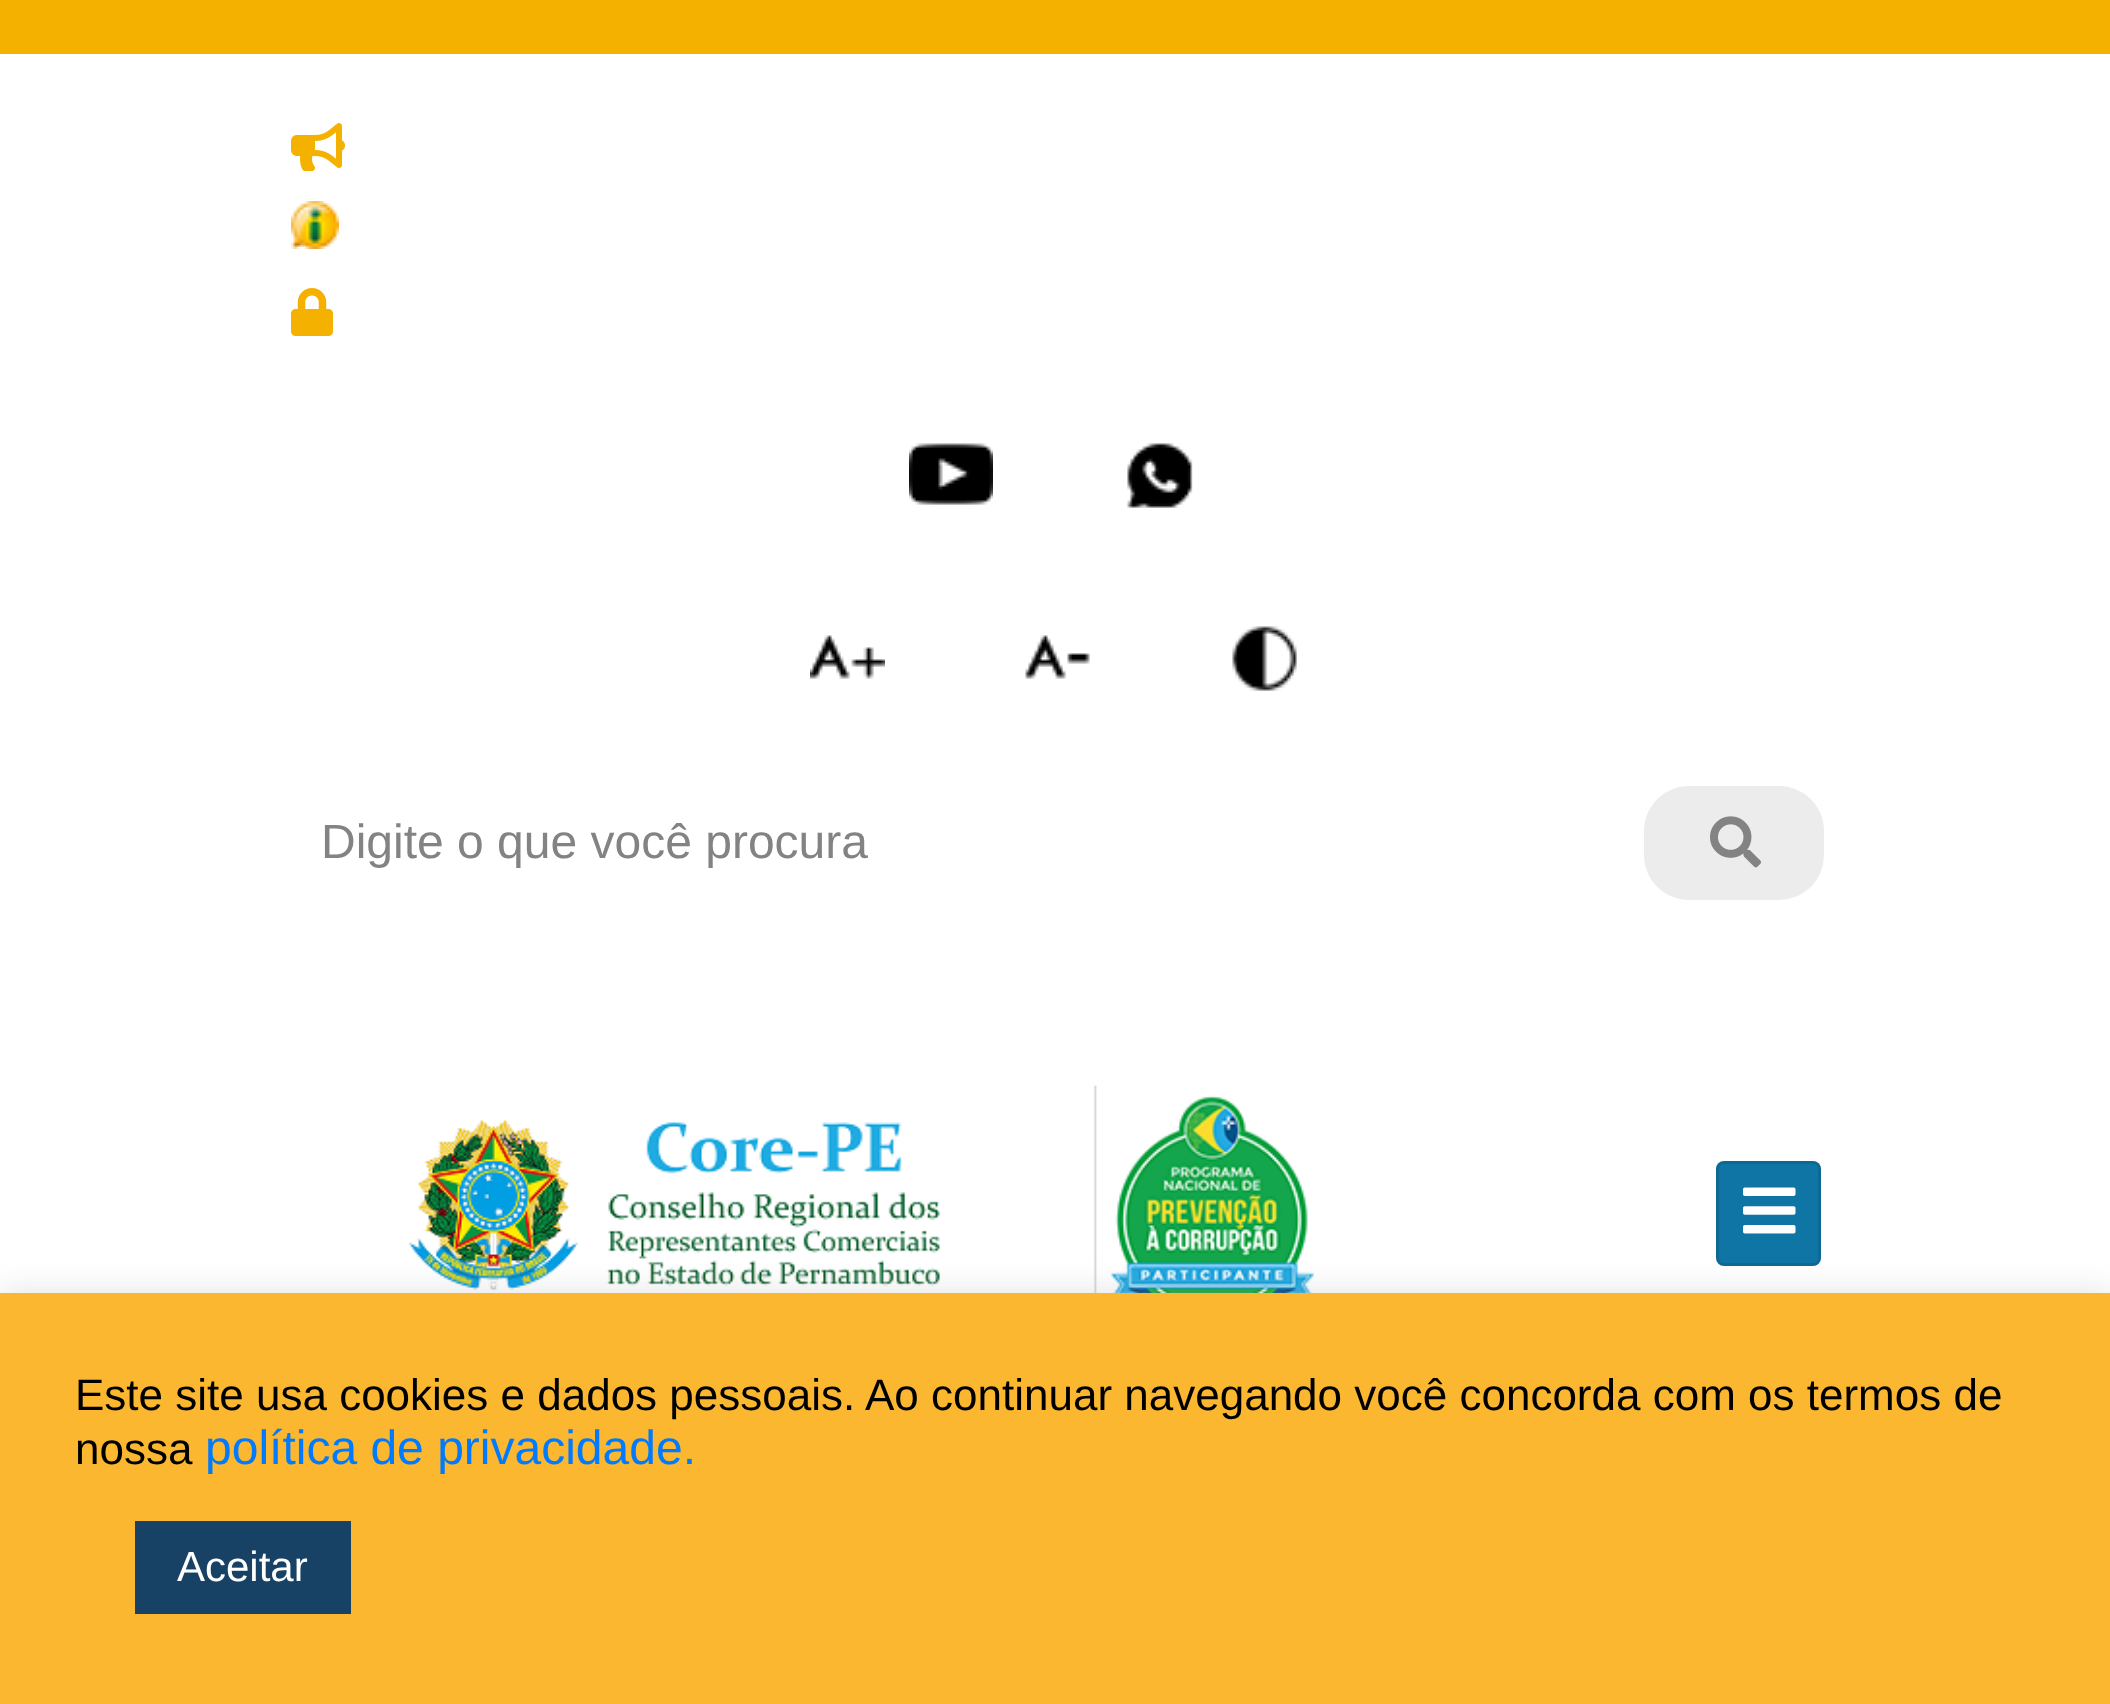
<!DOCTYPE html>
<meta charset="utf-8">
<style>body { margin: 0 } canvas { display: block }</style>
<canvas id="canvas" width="2110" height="1704"></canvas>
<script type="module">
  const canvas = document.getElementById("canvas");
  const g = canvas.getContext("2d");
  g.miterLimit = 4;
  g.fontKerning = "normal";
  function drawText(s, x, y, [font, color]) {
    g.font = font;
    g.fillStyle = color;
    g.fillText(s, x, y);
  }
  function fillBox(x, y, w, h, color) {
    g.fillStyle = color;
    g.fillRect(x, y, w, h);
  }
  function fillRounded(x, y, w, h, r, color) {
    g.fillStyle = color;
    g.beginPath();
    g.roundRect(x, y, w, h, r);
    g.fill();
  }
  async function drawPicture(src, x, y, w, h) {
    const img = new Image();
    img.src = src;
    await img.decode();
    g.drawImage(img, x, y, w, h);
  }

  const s1 = ["48px Liberation Sans", "#838383"];
  const s2 = ["44px Liberation Sans", "#000000"];
  const s3 = ["48px Liberation Sans", "#007BFF"];
  const s4 = ["42px Liberation Sans", "#FFFFFF"];

  fillBox(0, 0, 2110, 1704, "#FFFFFF");
  fillBox(0, 0, 2110, 54, "#F5B100");
  await drawPicture("pic1.png", 291, 123, 54, 48);
  await drawPicture("pic2.png", 291, 201, 48, 48);
  await drawPicture("pic3.png", 291, 288, 42, 48);
  await drawPicture("pic4.png", 909, 443, 84, 62);
  await drawPicture("pic5.png", 1127, 443, 66, 65);
  await drawPicture("pic6.png", 810, 635, 75, 44);
  await drawPicture("pic7.png", 1025, 635, 65, 44);
  await drawPicture("pic8.png", 1232, 626, 65, 65);
  fillRounded(1644, 786, 180, 114, 45, "#ECECEC");
  drawText("Digite o que você procura", 321, 858, s1);
  await drawPicture("pic9.png", 1710, 816, 51, 52);
  await drawPicture("pic10.png", 408, 1085, 907, 208);
  fillRounded(1716, 1161, 105, 105, 8, "#0F75A5");
  g.beginPath();
  g.roundRect(1717.5, 1162.5, 102, 102, 6.5);
  g.strokeStyle = "rgba(0, 0, 0, 0.1)";
  g.lineWidth = 3;
  g.stroke();
  await drawPicture("pic11.png", 1743, 1187, 53, 47);
  g.fillStyle = "rgba(172, 171, 171, 0.3)";
  g.filter = "blur(15px)";
  g.beginPath();
  g.rect(0, 1290, 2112, 411);
  g.fill();
  g.filter = "none";
  fillBox(0, 1293, 2110, 411, "#FAB72F");
  drawText("Este site usa cookies e dados pessoais. Ao continuar navegando você concorda com os termos de", 75, 1410, s2);
  drawText("nossa", 75, 1464, s2);
  drawText("política de privacidade.", 205, 1464, s3);
  fillBox(135, 1521, 216, 93, "#174265");
  drawText("Aceitar", 177, 1581, s4);
</script>
